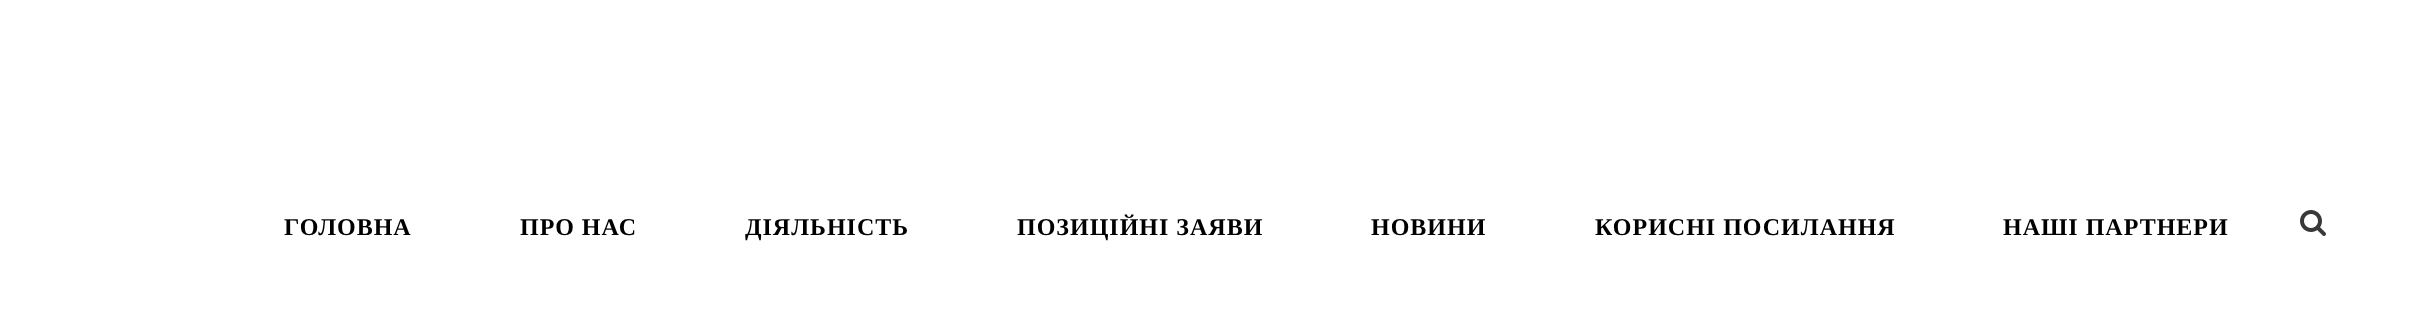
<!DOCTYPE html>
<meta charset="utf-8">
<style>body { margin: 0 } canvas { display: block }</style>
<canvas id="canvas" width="2410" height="334"></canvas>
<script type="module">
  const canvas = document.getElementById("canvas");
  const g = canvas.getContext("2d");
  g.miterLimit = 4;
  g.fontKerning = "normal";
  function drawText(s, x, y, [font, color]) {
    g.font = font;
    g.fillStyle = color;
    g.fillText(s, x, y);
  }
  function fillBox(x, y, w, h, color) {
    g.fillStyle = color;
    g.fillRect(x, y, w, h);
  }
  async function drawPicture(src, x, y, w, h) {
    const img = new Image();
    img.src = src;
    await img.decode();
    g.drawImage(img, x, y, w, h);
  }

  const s1 = ["bold 24px Liberation Serif", "#000000"];

  fillBox(0, 0, 2410, 334, "#FFFFFF");
  g.letterSpacing = "1px";
  drawText("ГОЛОВНА", 284, 235, s1);
  drawText("ПРО НАС", 520, 235, s1);
  drawText("ДІЯЛЬНІСТЬ", 745, 235, s1);
  drawText("ПОЗИЦІЙНІ ЗАЯВИ", 1017, 235, s1);
  drawText("НОВИНИ", 1371, 235, s1);
  drawText("КОРИСНІ ПОСИЛАННЯ", 1595, 235, s1);
  drawText("НАШІ ПАРТНЕРИ", 2003, 235, s1);
  await drawPicture("pic1.png", 2300, 210, 26, 26);
</script>
